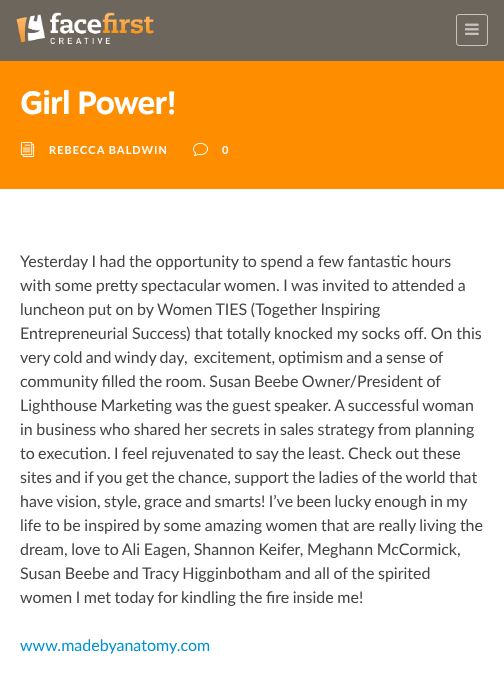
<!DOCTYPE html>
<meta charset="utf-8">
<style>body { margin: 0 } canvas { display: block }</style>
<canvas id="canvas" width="504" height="691"></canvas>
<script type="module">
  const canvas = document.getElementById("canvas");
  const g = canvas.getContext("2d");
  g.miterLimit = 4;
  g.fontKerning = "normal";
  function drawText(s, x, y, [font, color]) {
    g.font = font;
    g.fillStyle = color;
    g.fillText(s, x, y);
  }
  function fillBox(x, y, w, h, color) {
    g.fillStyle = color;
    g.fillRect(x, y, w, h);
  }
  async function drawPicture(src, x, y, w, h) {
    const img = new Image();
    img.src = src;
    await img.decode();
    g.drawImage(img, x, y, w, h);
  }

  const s1 = ["bold 32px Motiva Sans", "#FFFFFF"];
  const s2 = ["bold 11px Lato", "#FFFFFF"];
  const s3 = ["16px Lato", "#444444"];
  const s4 = ["16px Lato", "#0092D0"];

  fillBox(0, 0, 504, 691, "#FFFFFF");
  fillBox(0, 0, 504, 61, "#6D665C");
  await drawPicture("pic1.png", 16, 12, 138, 32);
  g.beginPath();
  g.roundRect(456.5, 14.5, 31, 31, 2.5);
  g.strokeStyle = "#C6C3BF";
  g.stroke();
  await drawPicture("pic2.png", 465, 23, 14, 12);
  fillBox(0, 61, 504, 128, "#FF8D00");
  g.letterSpacing = "-1px";
  drawText("Girl Power!", 20, 114, s1);
  await drawPicture("pic3.png", 20, 141, 15, 16);
  g.letterSpacing = "1px";
  drawText("REBECCA BALDWIN", 49, 154, s2);
  await drawPicture("pic4.png", 193, 142, 15, 14);
  drawText("0", 222, 154, s2);
  g.letterSpacing = "0px";
  g.wordSpacing = "-0.5px";
  drawText("Yesterday I had the opportunity to spend a few fantastic hours", 20, 267, s3);
  drawText("with some pretty spectacular women. I was invited to attended a", 20, 291, s3);
  drawText("luncheon put on by Women TIES (Together Inspiring", 20, 315, s3);
  g.wordSpacing = "-0.25px";
  drawText("Entrepreneurial Success) that totally knocked my socks off. On this", 20, 339, s3);
  g.wordSpacing = "-1px";
  drawText("very cold and windy day,  excitement, optimism and a sense of", 20, 363, s3);
  g.wordSpacing = "-0.75px";
  drawText("community filled the room. Susan Beebe Owner/President of", 20, 387, s3);
  drawText("Lighthouse Marketing was the guest speaker. A successful woman", 20, 411, s3);
  g.wordSpacing = "-0.5px";
  drawText("in business who shared her secrets in sales strategy from planning", 20, 435, s3);
  g.wordSpacing = "-0.75px";
  drawText("to execution. I feel rejuvenated to say the least. Check out these", 20, 459, s3);
  drawText("sites and if you get the chance, support the ladies of the world that", 20, 483, s3);
  drawText("have vision, style, grace and smarts! I’ve been lucky enough in my", 20, 507, s3);
  g.wordSpacing = "-0.5px";
  drawText("life to be inspired by some amazing women that are really living the", 20, 531, s3);
  drawText("dream, love to Ali Eagen, Shannon Keifer, Meghann McCormick,", 20, 555, s3);
  drawText("Susan Beebe and Tracy Higginbotham and all of the spirited", 20, 579, s3);
  drawText("women I met today for kindling the fire inside me!", 20, 603, s3);
  g.wordSpacing = "0px";
  drawText("www.madebyanatomy.com", 20, 651, s4);
</script>
